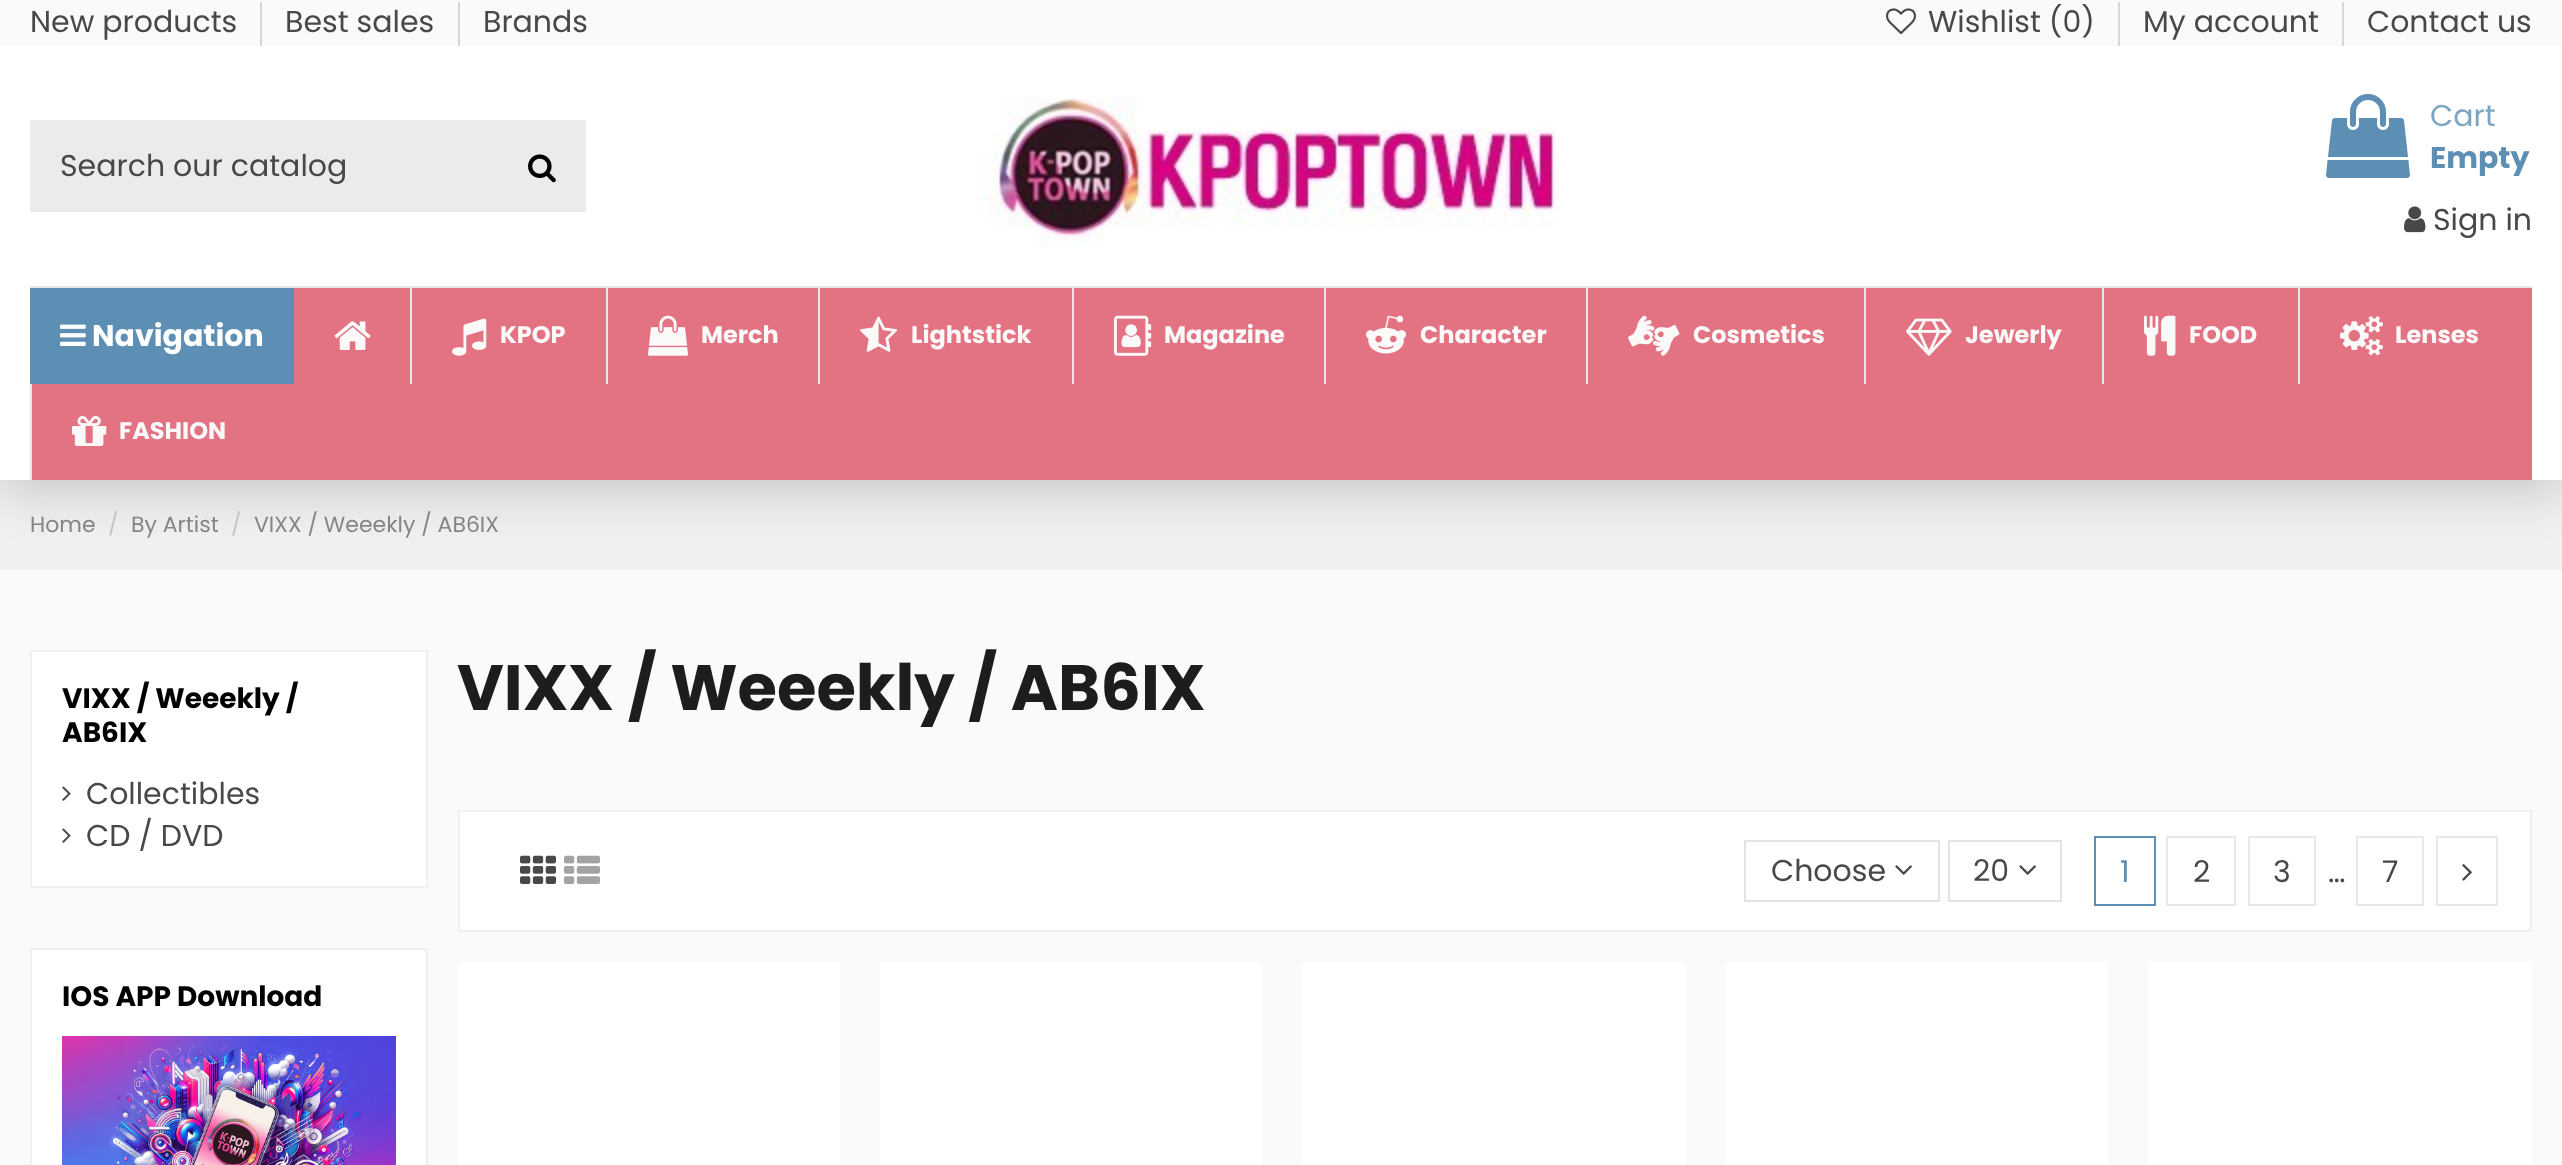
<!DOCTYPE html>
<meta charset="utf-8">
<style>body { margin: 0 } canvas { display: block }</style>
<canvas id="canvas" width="2562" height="1165"></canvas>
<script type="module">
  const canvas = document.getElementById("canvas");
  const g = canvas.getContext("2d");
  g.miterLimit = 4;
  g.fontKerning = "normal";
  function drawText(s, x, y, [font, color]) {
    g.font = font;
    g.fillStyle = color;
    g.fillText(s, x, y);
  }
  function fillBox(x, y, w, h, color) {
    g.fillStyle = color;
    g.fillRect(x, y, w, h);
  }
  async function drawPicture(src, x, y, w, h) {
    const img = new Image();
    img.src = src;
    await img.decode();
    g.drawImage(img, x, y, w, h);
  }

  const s1 = ["30px Poppins", "#484848"];
  const s2 = ["30px Poppins", "#7DA5C2"];
  const s3 = ["bold 30px Poppins", "#5D8EB3"];
  const s4 = ["bold 30px Poppins", "#FFFFFF"];
  const s5 = ["bold 24px Poppins", "#FCF9F9"];
  const s6 = ["22px Poppins", "#858585"];
  const s7 = ["22px Poppins", "#C5C5C5"];
  const s8 = ["bold 28px Poppins", "#000000"];
  const s9 = ["bold 64px Poppins", "#1D1D1D"];
  const s10 = ["30px Poppins", "#5D8EB3"];

  fillBox(0, 0, 2562, 1165, "#FAFAFA");
  fillBox(0, 480, 2562, 90, "#F0F0F0");
  g.fillStyle = "rgba(0, 0, 0, 0.18)";
  g.filter = "blur(25px)";
  g.beginPath();
  g.rect(0, 10, 2562, 480);
  g.fill();
  g.filter = "none";
  fillBox(0, 46, 2562, 434, "#FFFFFF");
  fillBox(0, 0, 2562, 46, "#FAFAFA");
  drawText("New products", 30, 32, s1);
  fillBox(260, 2, 2, 44, "#D6D6D6");
  drawText("Best sales", 285, 32, s1);
  fillBox(458, 2, 2, 44, "#D6D6D6");
  drawText("Brands", 483, 32, s1);
  await drawPicture("pic1.png", 1886, 8, 30, 27);
  drawText("Wishlist (0)", 1928, 32, s1);
  fillBox(2118, 2, 2, 44, "#D6D6D6");
  drawText("My account", 2143, 32, s1);
  fillBox(2342, 2, 2, 44, "#D6D6D6");
  drawText("Contact us", 2367, 32, s1);
  fillBox(30, 120, 556, 92, "#EBEBEB");
  drawText("Search our catalog", 60, 176, s1);
  await drawPicture("pic2.png", 528, 154, 28, 29);
  await drawPicture("pic3.png", 976, 97, 579, 152);
  await drawPicture("pic4.png", 2326, 94, 84, 84);
  drawText("Cart", 2430, 126, s2);
  drawText("Empty", 2430, 168, s3);
  await drawPicture("pic5.png", 2404, 206, 22, 27);
  drawText("Sign in", 2433, 230, s1);
  fillBox(32, 288, 2500, 192, "#E37383");
  fillBox(30, 286, 2502, 2, "#E6E6E6");
  fillBox(30, 288, 264, 96, "#5D8EB3");
  await drawPicture("pic6.png", 60, 324, 26, 22);
  drawText("Navigation", 92, 346, s4);
  await drawPicture("pic7.png", 334, 321, 37, 29);
  fillBox(410, 288, 2, 96, "#E6E6E6");
  await drawPicture("pic8.png", 452, 318, 35, 38);
  drawText("KPOP", 500, 343, s5);
  fillBox(606, 288, 2, 96, "#E6E6E6");
  await drawPicture("pic9.png", 648, 315, 40, 41);
  drawText("Merch", 701, 343, s5);
  fillBox(818, 288, 2, 96, "#E6E6E6");
  await drawPicture("pic10.png", 860, 316, 38, 36);
  drawText("Lightstick", 911, 343, s5);
  fillBox(1072, 288, 2, 96, "#E6E6E6");
  await drawPicture("pic11.png", 1114, 315, 38, 41);
  drawText("Magazine", 1164, 343, s5);
  fillBox(1324, 288, 2, 96, "#E6E6E6");
  await drawPicture("pic12.png", 1366, 315, 40, 39);
  drawText("Character", 1420, 343, s5);
  fillBox(1586, 288, 2, 96, "#E6E6E6");
  await drawPicture("pic13.png", 1628, 315, 52, 41);
  drawText("Cosmetics", 1693, 343, s5);
  fillBox(1864, 288, 2, 96, "#E6E6E6");
  await drawPicture("pic14.png", 1906, 318, 46, 38);
  drawText("Jewerly", 1965, 343, s5);
  fillBox(2102, 288, 2, 96, "#E6E6E6");
  await drawPicture("pic15.png", 2144, 315, 32, 41);
  drawText("FOOD", 2189, 343, s5);
  fillBox(2298, 288, 2, 96, "#E6E6E6");
  await drawPicture("pic16.png", 2340, 316, 43, 40);
  drawText("Lenses", 2395, 343, s5);
  fillBox(30, 384, 2, 96, "#E6E6E6");
  await drawPicture("pic17.png", 72, 416, 35, 30);
  drawText("FASHION", 119, 439, s5);
  drawText("Home", 30, 532, s6);
  drawText("/", 108, 532, s7);
  drawText("By Artist", 131, 532, s6);
  drawText("/", 231, 532, s7);
  drawText("VIXX / Weeekly / AB6IX", 254, 532, s6);
  g.fillStyle = "#FFFFFF";
  g.beginPath();
  g.rect(31, 651, 396, 236);
  g.fill();
  g.strokeStyle = "#F0F0F0";
  g.lineWidth = 2;
  g.stroke();
  drawText("VIXX / Weeekly /", 62, 708, s8);
  drawText("AB6IX", 62, 742, s8);
  await drawPicture("pic18.png", 62, 786, 9, 15);
  drawText("Collectibles", 86, 804, s1);
  await drawPicture("pic18.png", 62, 828, 9, 15);
  drawText("CD / DVD", 86, 846, s1);
  g.fillStyle = "#FFFFFF";
  g.beginPath();
  g.rect(31, 949, 396, 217);
  g.fill();
  g.stroke();
  drawText("IOS APP Download", 62, 1006, s8);
  await drawPicture("pic19.png", 62, 1036, 334, 129);
  drawText("VIXX / Weeekly / AB6IX", 457, 710, s9);
  g.fillStyle = "#FFFFFF";
  g.beginPath();
  g.rect(459, 811, 2072, 120);
  g.fill();
  g.stroke();
  await drawPicture("pic20.png", 520, 855, 36, 29);
  await drawPicture("pic21.png", 564, 855, 36, 29);
  g.strokeStyle = "#E3E3E3";
  g.strokeRect(1745, 841, 194, 60);
  drawText("Choose", 1771, 881, s1);
  await drawPicture("pic22.png", 1895, 865, 17, 10);
  g.strokeRect(1949, 841, 112, 60);
  drawText("20", 1973, 881, s1);
  await drawPicture("pic22.png", 2019, 865, 17, 10);
  g.strokeStyle = "#5D8EB3";
  g.strokeRect(2095, 837, 60, 68);
  drawText("1", 2120, 882, s10);
  g.strokeStyle = "#E7E7E7";
  g.strokeRect(2167, 837, 68, 68);
  drawText("2", 2193, 882, s1);
  g.strokeRect(2249, 837, 66, 68);
  drawText("3", 2273, 882, s1);
  drawText("…", 2328, 882, s1);
  g.strokeRect(2357, 837, 66, 68);
  drawText("7", 2382, 882, s1);
  g.strokeRect(2437, 837, 60, 68);
  await drawPicture("pic23.png", 2462, 864, 10, 17);
  fillBox(458, 962, 382, 203, "#FFFFFF");
  fillBox(880, 962, 382, 203, "#FFFFFF");
  fillBox(1302, 962, 384, 203, "#FFFFFF");
  fillBox(1726, 962, 382, 203, "#FFFFFF");
  fillBox(2148, 962, 384, 203, "#FFFFFF");
</script>
